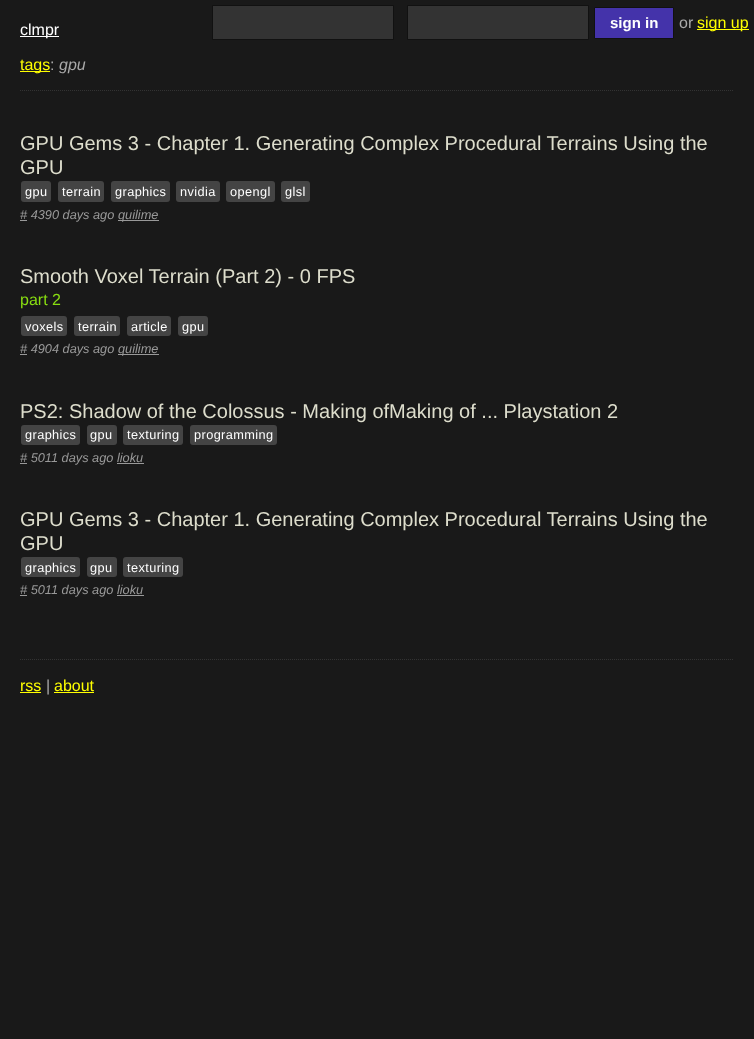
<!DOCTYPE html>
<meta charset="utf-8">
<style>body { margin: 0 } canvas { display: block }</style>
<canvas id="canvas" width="754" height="1039"></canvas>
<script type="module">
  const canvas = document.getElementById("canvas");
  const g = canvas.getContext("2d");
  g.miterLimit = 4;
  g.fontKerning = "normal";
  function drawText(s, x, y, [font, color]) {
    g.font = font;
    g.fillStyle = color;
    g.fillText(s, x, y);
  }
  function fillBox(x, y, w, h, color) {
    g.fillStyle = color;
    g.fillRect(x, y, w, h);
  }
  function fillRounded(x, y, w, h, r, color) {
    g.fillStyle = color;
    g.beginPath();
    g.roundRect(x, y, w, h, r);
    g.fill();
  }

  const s1 = ["16px Liberation Sans", "#FFFFFF"];
  const s2 = ["bold 15px Liberation Sans", "#FFFFFF"];
  const s3 = ["16px Liberation Sans", "#AAAAAA"];
  const s4 = ["16px Liberation Sans", "#FFFF00"];
  const s5 = ["italic 16px Liberation Sans", "#AAAAAA"];
  const s6 = ["20px Liberation Sans", "#DDDDCC"];
  const s7 = ["12.75px Liberation Sans", "#FFFFFF"];
  const s8 = ["italic 12.75px Liberation Sans", "#999999"];
  const s9 = ["16px Liberation Sans", "#88DD11"];

  fillBox(0, 0, 754, 1039, "#191919");
  fillBox(20, 36, 39, 1, "#FFFFFF");
  drawText("clmpr", 20, 35, s1);
  g.fillStyle = "#333333";
  g.beginPath();
  g.rect(212.5, 5.5, 181, 34);
  g.fill();
  g.strokeStyle = "#111111";
  g.stroke();
  g.beginPath();
  g.rect(407.5, 5.5, 181, 34);
  g.fill();
  g.stroke();
  g.fillStyle = "#4433AA";
  g.beginPath();
  g.rect(594.5, 7.5, 79, 31);
  g.fill();
  g.stroke();
  drawText("sign in", 610, 28, s2);
  drawText("or", 679, 28, s3);
  fillBox(697, 29, 52, 1, "#FFFF00");
  drawText("sign up", 697, 28, s4);
  fillBox(20, 71, 30, 1, "#FFFF00");
  drawText("tags", 20, 70, s4);
  drawText(":", 50, 70, s3);
  drawText("gpu", 59, 70, s5);
  g.beginPath();
  g.moveTo(20, 90.5);
  g.lineTo(734, 90.5);
  g.strokeStyle = "#333333";
  g.setLineDash([1, 1]);
  g.stroke();
  drawText("GPU Gems 3 - Chapter 1. Generating Complex Procedural Terrains Using the", 20, 150, s6);
  drawText("GPU", 20, 174, s6);
  fillRounded(21, 181, 30, 21, 3, "#444444");
  g.letterSpacing = "0.4px";
  drawText("gpu", 25, 196, s7);
  fillRounded(58, 181, 46, 21, 3, "#444444");
  drawText("terrain", 62, 196, s7);
  fillRounded(111, 181, 59, 21, 3, "#444444");
  drawText("graphics", 115, 196, s7);
  fillRounded(176, 181, 44, 21, 3, "#444444");
  drawText("nvidia", 180, 196, s7);
  fillRounded(226, 181, 49, 21, 3, "#444444");
  drawText("opengl", 230, 196, s7);
  fillRounded(281, 181, 29, 21, 3, "#444444");
  drawText("glsl", 285, 196, s7);
  fillBox(20, 220, 7, 1, "#999999");
  g.letterSpacing = "0px";
  drawText("# 4390 days ago", 20, 219, s8);
  fillBox(118, 220, 41, 1, "#999999");
  drawText("quilime", 118, 219, s8);
  drawText("Smooth Voxel Terrain (Part 2) - 0 FPS", 20, 283, s6);
  drawText("part 2", 20, 305, s9);
  fillRounded(21, 316, 46, 20, 3, "#444444");
  g.letterSpacing = "0.4px";
  drawText("voxels", 25, 331, s7);
  fillRounded(74, 316, 46, 20, 3, "#444444");
  drawText("terrain", 78, 331, s7);
  fillRounded(127, 316, 44, 20, 3, "#444444");
  drawText("article", 131, 331, s7);
  fillRounded(178, 316, 30, 20, 3, "#444444");
  drawText("gpu", 182, 331, s7);
  fillBox(20, 354, 7, 1, "#999999");
  g.letterSpacing = "0px";
  drawText("# 4904 days ago", 20, 353, s8);
  fillBox(118, 354, 41, 1, "#999999");
  drawText("quilime", 118, 353, s8);
  drawText("PS2: Shadow of the Colossus - Making ofMaking of ... Playstation 2", 20, 418, s6);
  fillRounded(21, 425, 59, 20, 3, "#444444");
  g.letterSpacing = "0.4px";
  drawText("graphics", 25, 439, s7);
  fillRounded(87, 425, 30, 20, 3, "#444444");
  drawText("gpu", 90, 439, s7);
  fillRounded(123, 425, 60, 20, 3, "#444444");
  drawText("texturing", 127, 439, s7);
  fillRounded(190, 425, 87, 20, 3, "#444444");
  drawText("programming", 194, 439, s7);
  fillBox(20, 463, 7, 1, "#999999");
  g.letterSpacing = "0px";
  drawText("# 5011 days ago lioku", 20, 462, s8);
  fillBox(117, 463, 27, 1, "#999999");
  drawText("GPU Gems 3 - Chapter 1. Generating Complex Procedural Terrains Using the", 20, 526, s6);
  drawText("GPU", 20, 550, s6);
  fillRounded(21, 557, 59, 20, 3, "#444444");
  g.letterSpacing = "0.4px";
  drawText("graphics", 25, 572, s7);
  fillRounded(87, 557, 30, 20, 3, "#444444");
  drawText("gpu", 90, 572, s7);
  fillRounded(123, 557, 60, 20, 3, "#444444");
  drawText("texturing", 127, 572, s7);
  fillBox(20, 595, 7, 1, "#999999");
  g.letterSpacing = "0px";
  drawText("# 5011 days ago lioku", 20, 594, s8);
  fillBox(117, 595, 27, 1, "#999999");
  g.beginPath();
  g.moveTo(20, 659.5);
  g.lineTo(734, 659.5);
  g.stroke();
  drawText("rss", 20, 691, s4);
  fillBox(20, 692, 21, 1, "#FFFF00");
  drawText("|", 46, 691, s3);
  drawText("about", 54, 691, s4);
  fillBox(54, 692, 40, 1, "#FFFF00");
</script>
